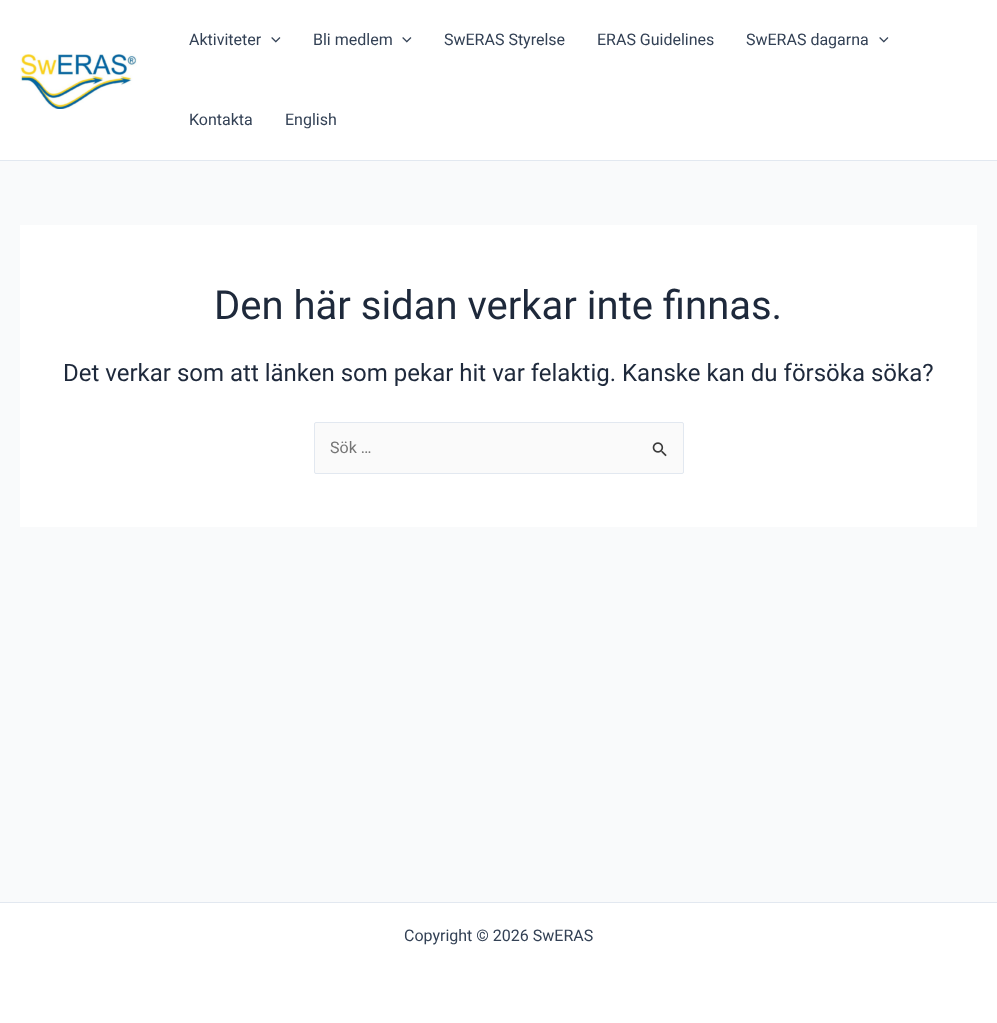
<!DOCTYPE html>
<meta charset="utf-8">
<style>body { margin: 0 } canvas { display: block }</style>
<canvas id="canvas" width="997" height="1023"></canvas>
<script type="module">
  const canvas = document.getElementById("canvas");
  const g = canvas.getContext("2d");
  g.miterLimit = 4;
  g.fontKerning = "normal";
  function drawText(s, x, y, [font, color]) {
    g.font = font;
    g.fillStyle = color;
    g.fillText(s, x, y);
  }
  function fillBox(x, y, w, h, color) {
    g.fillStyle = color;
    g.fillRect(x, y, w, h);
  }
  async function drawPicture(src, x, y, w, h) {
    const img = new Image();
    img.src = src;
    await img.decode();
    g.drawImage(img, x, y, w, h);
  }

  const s1 = ["16px Roboto", "#334155"];
  const s2 = ["40px Roboto", "#1E293B"];
  const s3 = ["24px Roboto", "#1E293B"];
  const s4 = ["16px Roboto", "#757575"];

  fillBox(0, 0, 997, 1023, "#F9FAFB");
  fillBox(0, 0, 997, 160, "#FFFFFF");
  fillBox(0, 160, 997, 1, "#E2E8F0");
  await drawPicture("pic1.png", 20, 54, 117, 55);
  drawText("Aktiviteter", 189, 45, s1);
  await drawPicture("pic2.png", 271, 37, 10, 6);
  drawText("Bli medlem", 313, 45, s1);
  await drawPicture("pic2.png", 402, 37, 10, 6);
  drawText("SwERAS Styrelse", 444, 45, s1);
  drawText("ERAS Guidelines", 597, 45, s1);
  drawText("SwERAS dagarna", 746, 45, s1);
  await drawPicture("pic2.png", 879, 37, 10, 6);
  drawText("Kontakta", 189, 125, s1);
  drawText("English", 285, 125, s1);
  fillBox(20, 225, 957, 302, "#FFFFFF");
  drawText("Den här sidan verkar inte finnas.", 214, 319, s2);
  drawText("Det verkar som att länken som pekar hit var felaktig. Kanske kan du försöka söka?", 63, 381, s3);
  g.fillStyle = "#FAFAFA";
  g.beginPath();
  g.roundRect(314.5, 422.5, 369, 51, 1.5);
  g.fill();
  g.strokeStyle = "#E2E8F0";
  g.stroke();
  drawText("Sök …", 330, 453, s4);
  await drawPicture("pic3.png", 652, 442, 15, 15);
  fillBox(0, 903, 997, 120, "#FFFFFF");
  fillBox(0, 902, 997, 1, "#E2E8F0");
  drawText("Copyright © 2026 SwERAS", 404, 941, s1);
</script>
